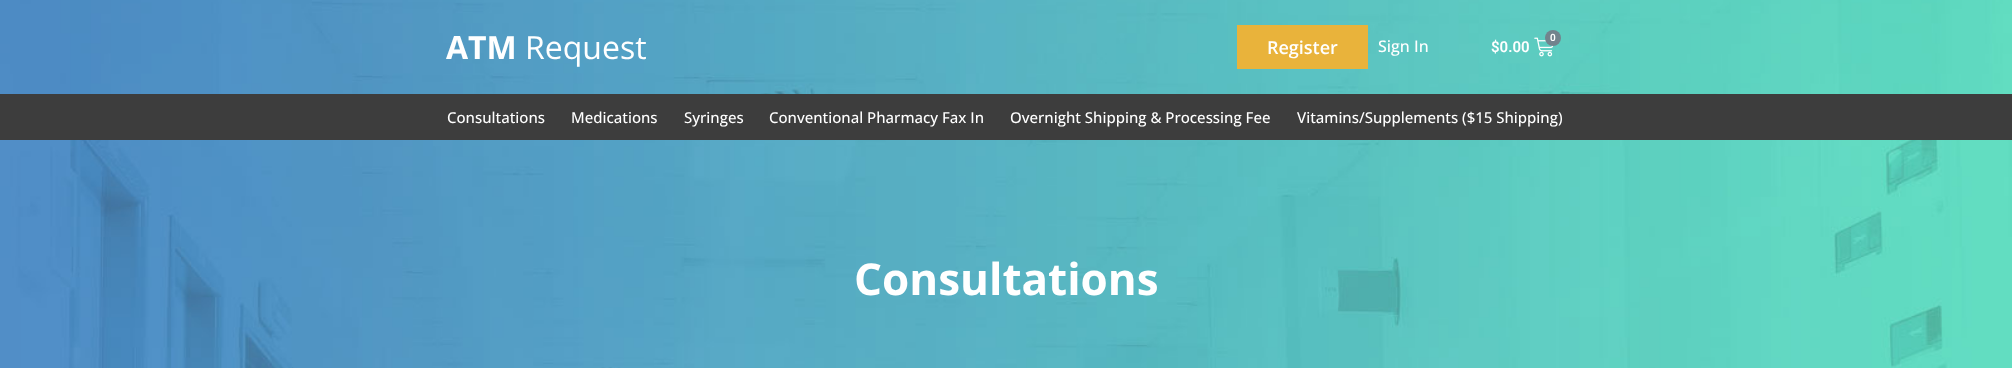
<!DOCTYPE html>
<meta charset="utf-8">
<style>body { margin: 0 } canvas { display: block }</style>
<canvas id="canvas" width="2012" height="368"></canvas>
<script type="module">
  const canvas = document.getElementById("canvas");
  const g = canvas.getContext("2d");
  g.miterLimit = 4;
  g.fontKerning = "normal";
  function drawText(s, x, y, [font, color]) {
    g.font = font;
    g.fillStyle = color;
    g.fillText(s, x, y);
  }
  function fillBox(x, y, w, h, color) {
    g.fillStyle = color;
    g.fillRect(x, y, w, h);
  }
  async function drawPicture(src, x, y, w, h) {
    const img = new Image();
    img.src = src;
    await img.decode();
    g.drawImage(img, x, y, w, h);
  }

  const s1 = ["bold 32px Open Sans", "#FFFFFF"];
  const s2 = ["32px Open Sans", "#FFFFFF"];
  const s3 = ["600 18px Open Sans", "#FFFFFF"];
  const s4 = ["500 16px Open Sans", "#FFFFFF"];
  const s5 = ["600 10px Roboto", "#FFFFFF"];
  const s6 = ["600 15px Roboto", "#FFFFFF"];
  const s7 = ["500 15px Open Sans", "#FFFFFF"];
  const s8 = ["bold 44px Open Sans", "#FFFFFF"];

  fillBox(0, 0, 2012, 368, "#FFFFFF");
  await drawPicture("pic1.png", 0, 0, 2012, 94);
  drawText("ATM", 446, 59, s1);
  drawText("Request", 525, 59, s2);
  fillBox(1237, 25, 131, 44, "#E9B33B");
  drawText("Register", 1267, 54, s3);
  drawText("Sign In", 1378, 52, s4);
  await drawPicture("pic2.png", 1534, 37, 20, 20);
  g.fillStyle = "#72838D";
  g.beginPath();
  g.arc(1553, 38, 8, 0, Math.PI * 2);
  g.fill();
  drawText("0", 1550, 41, s5);
  drawText("$0.00", 1491, 52, s6);
  fillBox(0, 94, 2012, 46, "#3D3D3D");
  drawText("Consultations", 447, 123, s7);
  drawText("Medications", 571, 123, s7);
  drawText("Syringes", 684, 123, s7);
  drawText("Conventional Pharmacy Fax In", 769, 123, s7);
  drawText("Overnight Shipping & Processing Fee", 1010, 123, s7);
  drawText("Vitamins/Supplements ($15 Shipping)", 1297, 123, s7);
  await drawPicture("pic3.png", 0, 140, 2012, 228);
  drawText("Consultations", 854, 295, s8);
</script>
